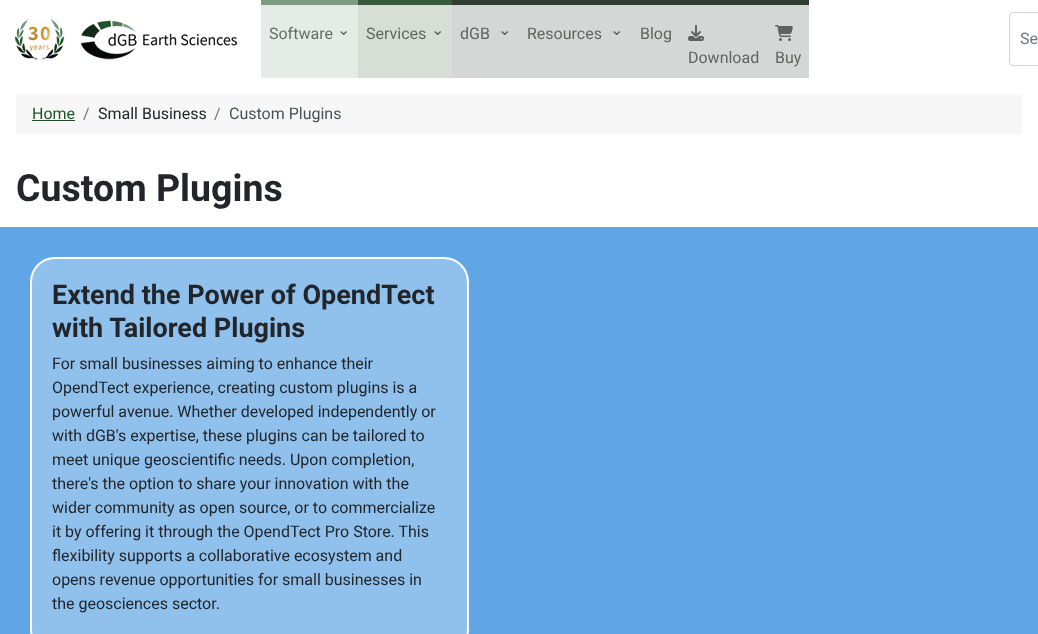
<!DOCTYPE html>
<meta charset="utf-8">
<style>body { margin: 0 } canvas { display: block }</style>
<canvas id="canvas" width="1038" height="634"></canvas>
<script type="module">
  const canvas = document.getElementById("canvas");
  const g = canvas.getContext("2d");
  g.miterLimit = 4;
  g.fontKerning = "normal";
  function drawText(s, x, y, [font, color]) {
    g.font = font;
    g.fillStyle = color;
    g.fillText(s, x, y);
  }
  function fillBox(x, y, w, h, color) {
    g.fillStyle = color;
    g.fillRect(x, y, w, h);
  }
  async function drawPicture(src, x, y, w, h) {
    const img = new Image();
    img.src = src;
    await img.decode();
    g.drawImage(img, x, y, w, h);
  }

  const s1 = ["16px Roboto", "#676A67"];
  const s2 = ["16px DejaVu Sans", "#676A67"];
  const s3 = ["16px Roboto", "#616460"];
  const s4 = ["16px DejaVu Sans", "#616460"];
  const s5 = ["16px Roboto", "#6D757E"];
  const s6 = ["16px Roboto", "#1F5128"];
  const s7 = ["16px Roboto", "#22262A"];
  const s8 = ["16px Roboto", "#484F56"];
  const s9 = ["bold 37.5px Roboto", "#22262A"];
  const s10 = ["bold 27px Roboto", "#22262A"];

  fillBox(0, 0, 1038, 634, "#FFFFFF");
  await drawPicture("pic1.png", 15, 19, 222, 41);
  fillBox(261, 5, 97, 73, "#E5ECE5");
  fillBox(261, 0, 97, 5, "#7C9B82");
  drawText("Software", 269, 39, s1);
  drawText("⌄", 337, 35, s2);
  fillBox(358, 5, 94, 73, "#D7DED6");
  fillBox(358, 0, 94, 5, "#375A3A");
  drawText("Services", 366, 39, s3);
  drawText("⌄", 431, 35, s4);
  fillBox(452, 5, 180, 73, "#D5D7D6");
  fillBox(452, 0, 180, 5, "#2F3C32");
  drawText("dGB", 460, 39, s3);
  drawText("⌄", 498, 35, s4);
  drawText("Resources", 527, 39, s3);
  drawText("⌄", 610, 35, s4);
  fillBox(632, 5, 177, 73, "#D5D7D6");
  fillBox(632, 0, 177, 5, "#2F3C32");
  drawText("Blog", 640, 39, s3);
  await drawPicture("pic2.png", 688, 25, 16, 16);
  drawText("Download", 688, 63, s3);
  await drawPicture("pic3.png", 775, 25, 18, 16);
  drawText("Buy", 775, 63, s3);
  g.beginPath();
  g.roundRect(1009.5, 12.5, 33, 53, 3.5);
  g.strokeStyle = "#CED4DA";
  g.stroke();
  drawText("Se", 1020, 44, s5);
  fillBox(16, 94, 1006, 40, "#F7F7F7");
  drawText("Home", 32, 119, s6);
  fillBox(32, 120, 43, 1, "#1F5128");
  drawText("/", 83, 119, s5);
  drawText("Small Business", 98, 119, s7);
  drawText("/", 214, 119, s5);
  drawText("Custom Plugins", 229, 119, s8);
  drawText("Custom Plugins", 16, 201, s9);
  fillBox(0, 227, 1038, 407, "#60A5E5");
  g.fillStyle = "#90C0EC";
  g.beginPath();
  g.roundRect(31, 258, 437, 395, 24);
  g.fill();
  g.strokeStyle = "#FFFFFF";
  g.lineWidth = 2;
  g.stroke();
  drawText("Extend the Power of OpendTect", 52, 304, s10);
  drawText("with Tailored Plugins", 52, 337, s10);
  drawText("For small businesses aiming to enhance their", 52, 369, s7);
  drawText("OpendTect experience, creating custom plugins is a", 52, 393, s7);
  drawText("powerful avenue. Whether developed independently or", 52, 417, s7);
  drawText("with dGB's expertise, these plugins can be tailored to", 52, 441, s7);
  drawText("meet unique geoscientific needs. Upon completion,", 52, 465, s7);
  drawText("there's the option to share your innovation with the", 52, 489, s7);
  drawText("wider community as open source, or to commercialize", 52, 513, s7);
  drawText("it by offering it through the OpendTect Pro Store. This", 52, 537, s7);
  drawText("flexibility supports a collaborative ecosystem and", 52, 561, s7);
  drawText("opens revenue opportunities for small businesses in", 52, 585, s7);
  drawText("the geosciences sector.", 52, 609, s7);
</script>
